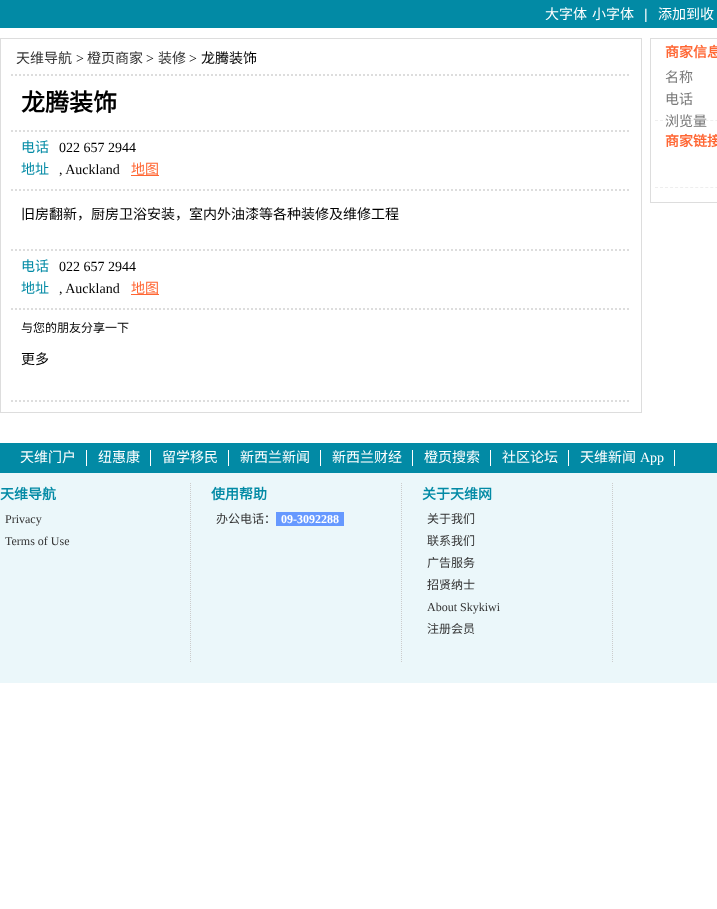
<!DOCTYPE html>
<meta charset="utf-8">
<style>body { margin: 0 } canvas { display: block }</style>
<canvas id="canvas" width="717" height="909"></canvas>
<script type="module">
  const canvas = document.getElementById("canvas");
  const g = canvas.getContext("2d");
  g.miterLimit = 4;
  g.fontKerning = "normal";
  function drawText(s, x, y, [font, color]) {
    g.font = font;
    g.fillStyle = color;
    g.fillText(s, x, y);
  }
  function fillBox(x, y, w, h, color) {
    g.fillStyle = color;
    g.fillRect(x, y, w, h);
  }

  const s1 = ["14px Noto Sans CJK SC", "#FFFFFF"];
  const s2 = ["14px Liberation Sans", "#FFFFFF"];
  const s3 = ["14px Noto Sans CJK SC", "#333333"];
  const s4 = ["14px Liberation Serif", "#000000"];
  const s5 = ["14px Noto Sans CJK SC", "#000000"];
  const s6 = ["bold 24px Noto Sans CJK SC", "#000000"];
  const s7 = ["14px Noto Sans CJK SC", "#028AA5"];
  const s8 = ["14px Noto Sans CJK SC", "#FF6633"];
  const s9 = ["12px Noto Sans CJK SC", "#000000"];
  const s10 = ["bold 14px Noto Sans CJK SC", "#FF6633"];
  const s11 = ["14px Noto Sans CJK SC", "#787878"];
  const s12 = ["14px Liberation Serif", "#FFFFFF"];
  const s13 = ["bold 14px Noto Sans CJK SC", "#028AA5"];
  const s14 = ["12px Liberation Serif", "#333333"];
  const s15 = ["12px Noto Sans CJK SC", "#333333"];
  const s16 = ["bold 12px Liberation Serif", "#FFFFFF"];

  fillBox(0, 0, 717, 909, "#FFFFFF");
  fillBox(0, 0, 717, 28, "#028AA5");
  drawText("大字体", 545, 19, s1);
  drawText("小字体", 592, 19, s1);
  drawText("|", 644, 19, s2);
  drawText("添加到收", 658, 19, s1);
  g.strokeStyle = "#DDDDDD";
  g.strokeRect(0.5, 38.5, 641, 374);
  g.beginPath();
  g.moveTo(11, 75);
  g.lineTo(631, 75);
  g.lineWidth = 2;
  g.setLineDash([2, 2]);
  g.stroke();
  drawText("天维导航", 16, 63, s3);
  drawText(">", 76, 63, s4);
  drawText("橙页商家", 87, 63, s3);
  drawText(">", 146, 63, s4);
  drawText("装修", 158, 63, s3);
  drawText(">", 189, 63, s4);
  drawText("龙腾装饰", 201, 63, s5);
  drawText("龙腾装饰", 21, 111, s6);
  g.beginPath();
  g.moveTo(11, 131);
  g.lineTo(631, 131);
  g.stroke();
  g.beginPath();
  g.moveTo(11, 190);
  g.lineTo(631, 190);
  g.stroke();
  drawText("电话", 21, 152, s7);
  drawText("022 657 2944", 59, 152, s4);
  drawText("地址", 21, 174, s7);
  drawText(", Auckland", 59, 174, s4);
  fillBox(131, 175, 28, 1, "#FF6633");
  drawText("地图", 131, 174, s8);
  drawText("旧房翻新，厨房卫浴安装，室内外油漆等各种装修及维修工程", 21, 219, s5);
  g.beginPath();
  g.moveTo(11, 250);
  g.lineTo(631, 250);
  g.stroke();
  g.beginPath();
  g.moveTo(11, 309);
  g.lineTo(631, 309);
  g.stroke();
  drawText("电话", 21, 271, s7);
  drawText("022 657 2944", 59, 271, s4);
  drawText("地址", 21, 293, s7);
  drawText(", Auckland", 59, 293, s4);
  fillBox(131, 294, 28, 1, "#FF6633");
  drawText("地图", 131, 293, s8);
  g.beginPath();
  g.moveTo(11, 401);
  g.lineTo(631, 401);
  g.stroke();
  drawText("与您的朋友分享一下", 21, 332, s9);
  drawText("更多", 21, 364, s5);
  g.lineWidth = 1;
  g.setLineDash([]);
  g.strokeRect(650.5, 38.5, 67, 164);
  g.beginPath();
  g.moveTo(655, 120.5);
  g.lineTo(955, 120.5);
  g.strokeStyle = "#EEEEEE";
  g.setLineDash([3, 2.03]);
  g.stroke();
  drawText("商家信息", 665, 57, s10);
  drawText("名称", 665, 82, s11);
  drawText("电话", 665, 104, s11);
  drawText("浏览量", 665, 126, s11);
  g.beginPath();
  g.moveTo(655, 187.5);
  g.lineTo(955, 187.5);
  g.stroke();
  drawText("商家链接", 665, 146, s10);
  fillBox(0, 473, 717, 210, "#EBF7FA");
  fillBox(0, 443, 717, 30, "#028AA5");
  fillBox(86, 450, 1, 16, "#FFFFFF");
  drawText("天维门户", 20, 462, s1);
  fillBox(150, 450, 1, 16, "#FFFFFF");
  drawText("纽惠康", 98, 462, s1);
  fillBox(228, 450, 1, 16, "#FFFFFF");
  drawText("留学移民", 162, 462, s1);
  fillBox(320, 450, 1, 16, "#FFFFFF");
  drawText("新西兰新闻", 240, 462, s1);
  fillBox(412, 450, 1, 16, "#FFFFFF");
  drawText("新西兰财经", 332, 462, s1);
  fillBox(490, 450, 1, 16, "#FFFFFF");
  drawText("橙页搜索", 424, 462, s1);
  fillBox(568, 450, 1, 16, "#FFFFFF");
  drawText("社区论坛", 502, 462, s1);
  fillBox(674, 450, 1, 16, "#FFFFFF");
  drawText("天维新闻", 580, 462, s1);
  drawText("App", 640, 462, s12);
  g.beginPath();
  g.moveTo(190.5, 483);
  g.lineTo(190.5, 663);
  g.strokeStyle = "#CCCCCC";
  g.setLineDash([1, 1]);
  g.stroke();
  drawText("天维导航", 0, 499, s13);
  drawText("Privacy", 5, 523, s14);
  drawText("Terms of Use", 5, 545, s14);
  g.beginPath();
  g.moveTo(401.5, 483);
  g.lineTo(401.5, 663);
  g.stroke();
  drawText("使用帮助", 211, 499, s13);
  drawText("办公电话：", 216, 523, s15);
  fillBox(276, 512, 68, 14, "#6699FF");
  drawText("09-3092288", 281, 523, s16);
  g.beginPath();
  g.moveTo(612.5, 483);
  g.lineTo(612.5, 663);
  g.stroke();
  drawText("关于天维网", 422, 499, s13);
  drawText("关于我们", 427, 523, s15);
  drawText("联系我们", 427, 545, s15);
  drawText("广告服务", 427, 567, s15);
  drawText("招贤纳士", 427, 589, s15);
  drawText("About Skykiwi", 427, 611, s14);
  drawText("注册会员", 427, 633, s15);
</script>
